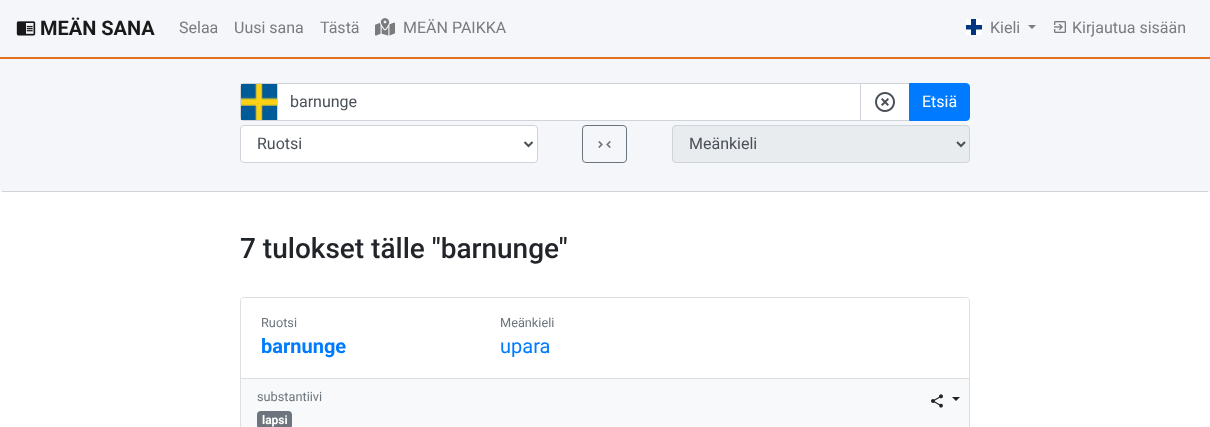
<!DOCTYPE html>
<meta charset="utf-8">
<style>body { margin: 0 } canvas { display: block }</style>
<canvas id="canvas" width="1210" height="427"></canvas>
<script type="module">
  const canvas = document.getElementById("canvas");
  const g = canvas.getContext("2d");
  g.miterLimit = 4;
  g.fontKerning = "normal";
  function drawText(s, x, y, [font, color]) {
    g.font = font;
    g.fillStyle = color;
    g.fillText(s, x, y);
  }
  function fillBox(x, y, w, h, color) {
    g.fillStyle = color;
    g.fillRect(x, y, w, h);
  }
  function fillRounded(x, y, w, h, r, color) {
    g.fillStyle = color;
    g.beginPath();
    g.roundRect(x, y, w, h, r);
    g.fill();
  }
  async function drawPicture(src, x, y, w, h) {
    const img = new Image();
    img.src = src;
    await img.decode();
    g.drawImage(img, x, y, w, h);
  }

  const s1 = ["bold 20px Roboto", "#181919"];
  const s2 = ["16px Roboto", "#7A7B7D"];
  const s3 = ["16px Roboto", "#495057"];
  const s4 = ["16px Roboto", "#FFFFFF"];
  const s5 = ["500 28px Roboto", "#212529"];
  const s6 = ["12.75px Roboto", "#6C757D"];
  const s7 = ["bold 20px Roboto", "#007BFF"];
  const s8 = ["20px Roboto", "#007BFF"];
  const s9 = ["bold 12px Roboto", "#FFFFFF"];

  fillBox(0, 0, 1210, 427, "#F4F6FA");
  fillBox(0, 57, 1210, 2, "#E3701F");
  await drawPicture("pic1.png", 16, 21, 20, 15);
  drawText("MEÄN SANA", 40, 35, s1);
  drawText("Selaa", 179, 33, s2);
  drawText("Uusi sana", 234, 33, s2);
  drawText("Tästä", 320, 33, s2);
  await drawPicture("pic2.png", 375, 18, 20, 18);
  drawText("MEÄN PAIKKA", 403, 33, s2);
  await drawPicture("pic3.png", 966, 19, 16, 16);
  drawText("Kieli", 990, 33, s2);
  g.beginPath();
  g.moveTo(1028, 25);
  g.lineTo(1036, 25);
  g.lineTo(1032, 29);
  g.closePath();
  g.fill();
  await drawPicture("pic4.png", 1054, 21, 12, 12);
  drawText("Kirjautua sisään", 1072, 33, s2);
  fillBox(2, 191, 1206, 1, "#D3D3D3");
  g.beginPath();
  g.roundRect(240.5, 83.5, 37, 37, [3.5, 0, 0, 3.5]);
  g.strokeStyle = "#CED4DA";
  g.stroke();
  await drawPicture("pic5.png", 241, 84, 36, 36);
  g.fillStyle = "#FFFFFF";
  g.beginPath();
  g.rect(860.5, 83.5, 49, 37);
  g.fill();
  g.stroke();
  g.beginPath();
  g.rect(277.5, 83.5, 583, 37);
  g.fill();
  g.stroke();
  drawText("barnunge", 290, 107, s3);
  await drawPicture("pic6.png", 875, 92, 20, 20);
  g.fillStyle = "#007BFF";
  g.beginPath();
  g.roundRect(909.5, 83.5, 60, 37, [0, 3.5, 3.5, 0]);
  g.fill();
  g.strokeStyle = "#007BFF";
  g.stroke();
  drawText("Etsiä", 922, 107, s4);
  g.beginPath();
  g.roundRect(240.5, 125.5, 297, 37, 3.5);
  g.fill();
  g.strokeStyle = "#CED4DA";
  g.stroke();
  g.beginPath();
  g.moveTo(524.5, 142);
  g.lineTo(528.5, 146);
  g.lineTo(532.5, 142);
  g.strokeStyle = "#495057";
  g.lineWidth = 2;
  g.stroke();
  drawText("Ruotsi", 257, 149, s3);
  g.beginPath();
  g.roundRect(582.5, 125.5, 44, 37, 3.5);
  g.strokeStyle = "#6C757D";
  g.lineWidth = 1;
  g.stroke();
  await drawPicture("pic7.png", 598, 141, 13, 7);
  g.fillStyle = "#E9ECEF";
  g.beginPath();
  g.roundRect(672.5, 125.5, 297, 37, 3.5);
  g.fill();
  g.strokeStyle = "#CED4DA";
  g.stroke();
  g.beginPath();
  g.moveTo(957, 142);
  g.lineTo(961, 146);
  g.lineTo(965, 142);
  g.strokeStyle = "#495057";
  g.lineWidth = 2;
  g.stroke();
  drawText("Meänkieli", 689, 149, s3);
  fillBox(0, 192, 1210, 235, "#FFFFFF");
  drawText("7 tulokset tälle \"barnunge\"", 240, 258, s5);
  g.beginPath();
  g.roundRect(240.5, 297.5, 729, 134, 3.5);
  g.strokeStyle = "#DFDFDF";
  g.lineWidth = 1;
  g.stroke();
  g.fillStyle = "#FFFFFF";
  g.beginPath();
  g.roundRect(241, 298, 728, 81, [3, 3, 0, 0]);
  g.fill();
  fillBox(241, 378, 728, 1, "#DFDFDF");
  drawText("Ruotsi", 261, 327, s6);
  drawText("barnunge", 261, 353, s7);
  drawText("Meänkieli", 500, 327, s6);
  drawText("upara", 500, 353, s8);
  fillBox(241, 379, 728, 48, "#F8F9FA");
  drawText("substantiivi", 257, 401, s6);
  fillRounded(257, 411, 35, 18, 4, "#6C757D");
  drawText("lapsi", 262, 424, s9);
  await drawPicture("pic8.png", 931, 394, 12, 14);
  g.fillStyle = "#212529";
  g.beginPath();
  g.moveTo(952, 397);
  g.lineTo(960, 397);
  g.lineTo(956, 401);
  g.closePath();
  g.fill();
</script>
